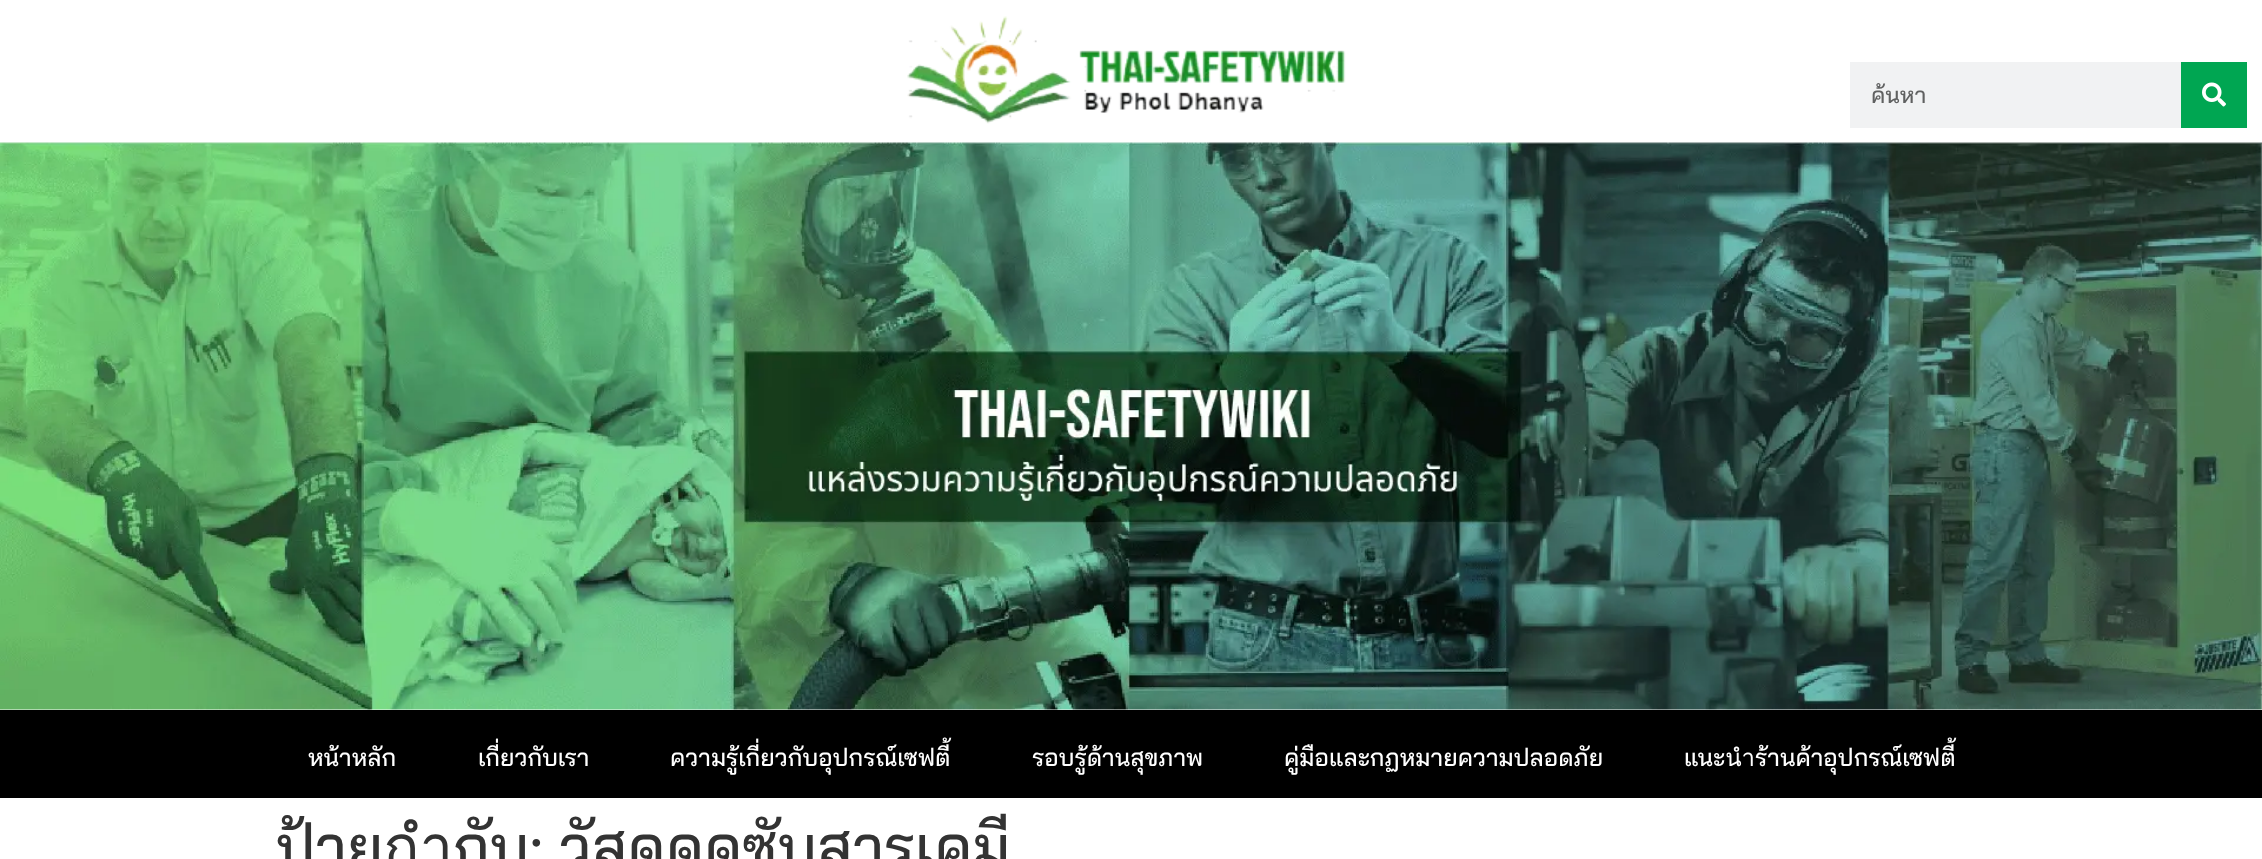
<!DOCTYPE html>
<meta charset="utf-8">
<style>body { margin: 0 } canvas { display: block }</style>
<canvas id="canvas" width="2262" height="859"></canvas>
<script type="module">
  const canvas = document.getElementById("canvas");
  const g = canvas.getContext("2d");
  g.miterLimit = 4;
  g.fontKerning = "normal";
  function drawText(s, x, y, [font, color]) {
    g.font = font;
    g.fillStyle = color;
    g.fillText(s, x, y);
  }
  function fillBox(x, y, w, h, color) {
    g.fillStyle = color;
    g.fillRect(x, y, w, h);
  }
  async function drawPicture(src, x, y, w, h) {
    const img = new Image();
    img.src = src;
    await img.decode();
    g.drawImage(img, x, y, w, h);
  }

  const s1 = ["500 22.5px Bai Jamjuree", "#606161"];
  const s2 = ["500 24px Bai Jamjuree", "#FFFFFF"];
  const s3 = ["500 60px Bai Jamjuree", "#333333"];

  fillBox(0, 0, 2262, 859, "#FFFFFF");
  await drawPicture("pic1.png", 907, 16, 439, 108);
  fillBox(1850, 62, 331, 66, "#F1F2F3");
  g.save();
  g.beginPath();
  g.rect(1871, 81, 267, 29);
  g.clip();
  drawText("ค้นหา", 1871, 103, s1);
  g.restore();
  fillBox(2181, 62, 66, 66, "#00A652");
  await drawPicture("pic2.png", 2202, 82, 24, 25);
  await drawPicture("pic3.png", 0, 142, 2262, 568);
  fillBox(0, 710, 2262, 88, "#000000");
  drawText("หน้าหลัก", 308, 766, s2);
  drawText("เกี่ยวกับเรา", 478, 766, s2);
  drawText("ความรู้เกี่ยวกับอุปกรณ์เซฟตี้", 670, 766, s2);
  drawText("รอบรู้ด้านสุขภาพ", 1032, 766, s2);
  drawText("คู่มือและกฏหมายความปลอดภัย", 1284, 766, s2);
  drawText("แนะนำร้านค้าอุปกรณ์เซฟตี้", 1684, 766, s2);
  drawText("ป้ายกำกับ: วัสดุดูดซับสารเคมี", 276, 868, s3);
</script>
